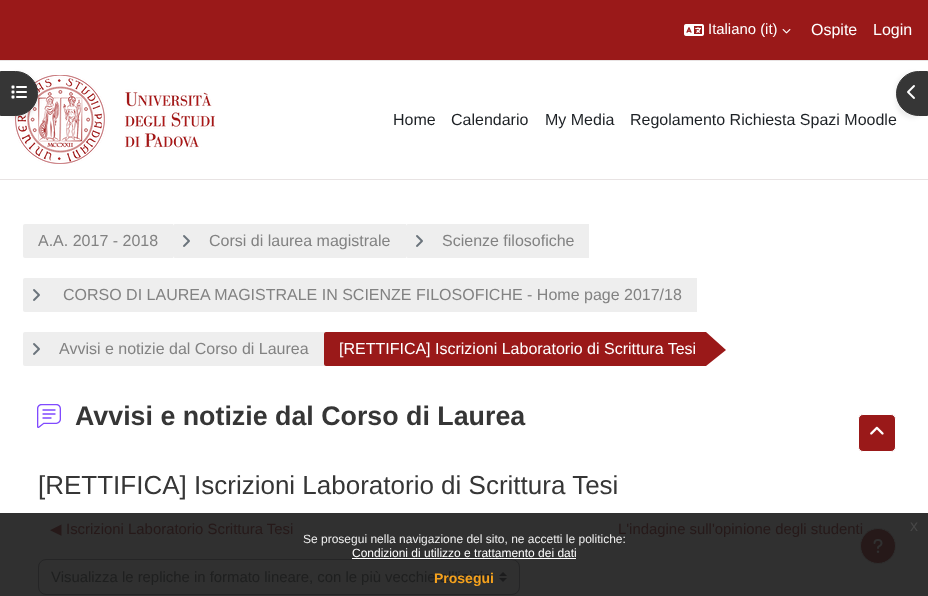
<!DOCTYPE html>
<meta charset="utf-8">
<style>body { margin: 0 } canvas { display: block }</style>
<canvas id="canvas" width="928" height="596"></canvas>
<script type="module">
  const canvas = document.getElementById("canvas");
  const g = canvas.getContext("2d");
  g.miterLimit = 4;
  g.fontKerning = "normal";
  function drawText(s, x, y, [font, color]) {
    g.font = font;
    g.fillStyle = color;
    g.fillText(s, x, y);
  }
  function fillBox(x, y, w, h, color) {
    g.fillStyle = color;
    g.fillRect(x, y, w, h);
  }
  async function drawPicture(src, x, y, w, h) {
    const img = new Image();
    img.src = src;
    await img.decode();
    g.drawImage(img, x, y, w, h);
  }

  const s1 = ["14.9px Liberation Sans", "#FFFFFF"];
  const s2 = ["16px Liberation Sans", "#FFFFFF"];
  const s3 = ["16px Liberation Sans", "#1D2125"];
  const s4 = ["16px Liberation Sans", "#828282"];
  const s5 = ["bold 26.8px Liberation Sans", "#363636"];
  const s6 = ["26px Liberation Sans", "#363636"];
  const s7 = ["14.9px DejaVu Sans", "#261919"];
  const s8 = ["14.9px Liberation Sans", "#261919"];
  const s9 = ["14.9px Liberation Sans", "#1E1F1F"];
  const s10 = ["16px Liberation Sans", "#474747"];
  const s11 = ["12px Liberation Sans", "#EFEFEF"];
  const s12 = ["12px Liberation Sans", "#FFFFFF"];
  const s13 = ["bold 14px Liberation Sans", "#F6A21D"];

  fillBox(0, 0, 928, 596, "#FFFFFF");
  fillBox(0, 513, 928, 83, "#303030");
  fillBox(0, 0, 928, 60, "#9A1919");
  fillBox(0, 60, 928, 1, "#E8E3E3");
  await drawPicture("pic1.png", 684, 24, 20, 12);
  drawText("Italiano (it)", 708, 34, s1);
  await drawPicture("pic2.png", 782, 29, 9, 5);
  drawText("Ospite", 811, 35, s2);
  drawText("Login", 873, 35, s2);
  fillBox(0, 179, 928, 1, "#E8E3E3");
  await drawPicture("pic3.png", 15, 75, 200, 89);
  drawText("Home", 393, 125, s3);
  drawText("Calendario", 451, 125, s3);
  drawText("My Media", 545, 125, s3);
  drawText("Regolamento Richiesta Spazi Moodle", 630, 125, s3);
  g.fillStyle = "rgba(0, 0, 0, 0.07)";
  g.filter = "blur(2px)";
  g.beginPath();
  g.roundRect(0, 73, 38, 45, 23);
  g.fill();
  g.filter = "none";
  g.fillStyle = "#363636";
  g.beginPath();
  g.roundRect(0.5, 71.5, 37, 44, [0, 22, 22, 0]);
  g.fill();
  g.strokeStyle = "#363636";
  g.stroke();
  await drawPicture("pic4.png", 11, 85, 16, 14);
  g.fillStyle = "rgba(0, 0, 0, 0.07)";
  g.filter = "blur(2px)";
  g.beginPath();
  g.roundRect(896, 73, 32, 45, 23);
  g.fill();
  g.filter = "none";
  g.fillStyle = "#363636";
  g.beginPath();
  g.roundRect(896.5, 71.5, 31, 44, [22, 0, 0, 22]);
  g.fill();
  g.stroke();
  await drawPicture("pic5.png", 907, 85, 8, 14);
  g.fillStyle = "#EEEEEE";
  g.beginPath();
  g.roundRect(23, 224, 150, 34, [2, 0, 0, 2]);
  g.fill();
  drawText("A.A. 2017 - 2018", 38, 246, s4);
  g.fillStyle = "#EEEEEE";
  g.beginPath();
  g.roundRect(173, 224, 233, 34, [2, 0, 0, 2]);
  g.fill();
  await drawPicture("pic6.png", 183, 235, 7, 12);
  drawText("Corsi di laurea magistrale", 209, 246, s4);
  g.fillStyle = "#EEEEEE";
  g.beginPath();
  g.roundRect(406, 224, 183, 34, [2, 0, 0, 2]);
  g.fill();
  await drawPicture("pic6.png", 416, 235, 7, 12);
  drawText("Scienze filosofiche", 442, 246, s4);
  g.fillStyle = "#EEEEEE";
  g.beginPath();
  g.roundRect(23, 278, 674, 34, [2, 0, 0, 2]);
  g.fill();
  await drawPicture("pic6.png", 33, 289, 7, 12);
  drawText("CORSO DI LAUREA MAGISTRALE IN SCIENZE FILOSOFICHE - Home page 2017/18", 63, 300, s4);
  g.fillStyle = "#EEEEEE";
  g.beginPath();
  g.roundRect(23, 332, 301, 34, [2, 0, 0, 2]);
  g.fill();
  await drawPicture("pic6.png", 33, 343, 7, 12);
  drawText("Avvisi e notizie dal Corso di Laurea", 59, 354, s4);
  g.fillStyle = "#9A1919";
  g.beginPath();
  g.roundRect(324, 332, 382, 34, [2, 0, 0, 2]);
  g.fill();
  drawText("[RETTIFICA] Iscrizioni Laboratorio di Scrittura Tesi", 339, 354, s2);
  g.fillStyle = "#9A1919";
  g.beginPath();
  g.moveTo(706, 366);
  g.lineTo(706, 332);
  g.lineTo(726, 350);
  g.closePath();
  g.fill();
  await drawPicture("pic7.png", 37, 404, 24, 24);
  drawText("Avvisi e notizie dal Corso di Laurea", 75, 425, s5);
  drawText("[RETTIFICA] Iscrizioni Laboratorio di Scrittura Tesi", 38, 494, s6);
  drawText("◀︎", 50, 534, s7);
  drawText("Iscrizioni Laboratorio Scrittura Tesi", 66, 534, s8);
  drawText("L'indagine sull'opinione degli studenti", 618, 534, s8);
  await drawPicture("pic8.png", 499, 572, 8, 10);
  g.beginPath();
  g.roundRect(38.5, 559.5, 481, 35, 7.5);
  g.strokeStyle = "#252526";
  g.stroke();
  drawText("Visualizza le repliche in formato lineare, con le più vecchie all'inizio", 51, 582, s9);
  g.fillStyle = "#9A1919";
  g.beginPath();
  g.roundRect(858.5, 414.5, 37, 37, 4.5);
  g.fill();
  g.strokeStyle = "#FFFFFF";
  g.stroke();
  await drawPicture("pic9.png", 870, 426, 14, 9);
  g.fillStyle = "#261919";
  g.beginPath();
  g.arc(878, 546, 17.5, 0, Math.PI * 2);
  g.fill();
  g.strokeStyle = "#2E2E2E";
  g.stroke();
  await drawPicture("pic10.png", 873, 539, 10, 14);
  drawText("x", 910, 531, s10);
  drawText("Se prosegui nella navigazione del sito, ne accetti le politiche:", 303, 543, s11);
  drawText("Condizioni di utilizzo e trattamento dei dati", 352, 557, s12);
  fillBox(352, 558, 224, 1, "#FFFFFF");
  drawText("Prosegui", 434, 583, s13);
</script>
